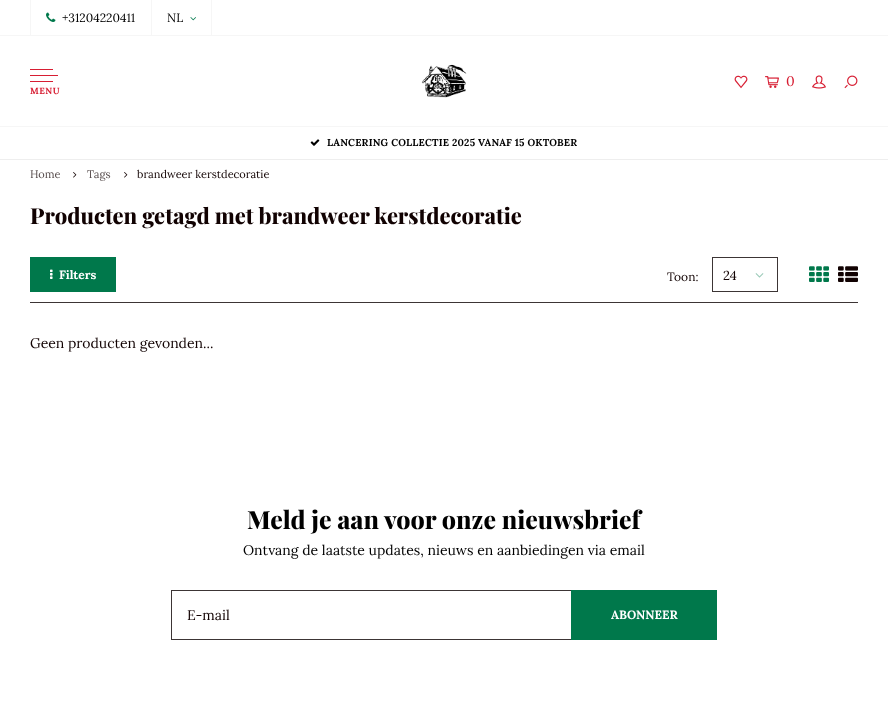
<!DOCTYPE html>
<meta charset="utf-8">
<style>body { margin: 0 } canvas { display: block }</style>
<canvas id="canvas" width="888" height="707"></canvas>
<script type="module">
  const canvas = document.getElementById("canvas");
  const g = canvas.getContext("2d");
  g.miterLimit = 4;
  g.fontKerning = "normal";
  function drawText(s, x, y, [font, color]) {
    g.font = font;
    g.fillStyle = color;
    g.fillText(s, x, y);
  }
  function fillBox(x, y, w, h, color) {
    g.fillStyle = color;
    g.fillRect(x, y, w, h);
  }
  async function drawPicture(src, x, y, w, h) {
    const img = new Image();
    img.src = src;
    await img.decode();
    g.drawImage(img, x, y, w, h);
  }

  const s1 = ["12px Lora", "#000000"];
  const s2 = ["14px Lora", "#D71E33"];
  const s3 = ["bold 9px Lora", "#D71E33"];
  const s4 = ["bold 10px Lora", "#000000"];
  const s5 = ["11px Lora", "#584E4E"];
  const s6 = ["11px Lora", "#110202"];
  const s7 = ["800 22px Playfair Display", "#110202"];
  const s8 = ["bold 12px Lora", "#FFFFFF"];
  const s9 = ["12px Lora", "#110202"];
  const s10 = ["13px Lora", "#110202"];
  const s11 = ["14px Lora", "#110202"];
  const s12 = ["800 25px Playfair Display", "#000000"];
  const s13 = ["14px Lora", "#000000"];

  fillBox(0, 0, 888, 707, "#FFFFFF");
  fillBox(0, 35, 888, 1, "#F6F6F6");
  fillBox(151, 0, 1, 35, "#F6F6F6");
  fillBox(30, 0, 1, 35, "#F6F6F6");
  await drawPicture("pic1.png", 46, 12, 10, 10);
  drawText("+31204220411", 62, 22, s1);
  fillBox(211, 0, 1, 35, "#F6F6F6");
  drawText("NL", 167, 22, s1);
  await drawPicture("pic2.png", 190, 17, 6, 4);
  fillBox(0, 126, 888, 1, "#F6F6F6");
  await drawPicture("pic3.png", 421, 64, 46, 34);
  await drawPicture("pic4.png", 734, 75, 14, 14);
  await drawPicture("pic5.png", 765, 76, 14, 12);
  drawText("0", 786, 86, s2);
  await drawPicture("pic6.png", 812, 75, 14, 14);
  await drawPicture("pic7.png", 844, 75, 14, 14);
  fillBox(30, 69, 23, 1, "#D71E33");
  fillBox(30, 75, 28, 1, "#D71E33");
  fillBox(30, 81, 23, 1, "#D71E33");
  g.letterSpacing = "0.5px";
  drawText("MENU", 30, 94, s3);
  fillBox(0, 159, 888, 1, "#EEEEEE");
  await drawPicture("pic8.png", 310, 139, 10, 7);
  g.letterSpacing = "0.2px";
  drawText("LANCERING COLLECTIE 2025 VANAF 15 OKTOBER", 327, 146, s4);
  g.letterSpacing = "0px";
  drawText("Home", 30, 178, s5);
  await drawPicture("pic9.png", 73, 172, 4, 6);
  drawText("Tags", 87, 178, s5);
  await drawPicture("pic9.png", 124, 172, 4, 6);
  drawText("brandweer kerstdecoratie", 137, 178, s6);
  drawText("Producten getagd met brandweer kerstdecoratie", 30, 224, s7);
  fillBox(30, 302, 828, 1, "#3C3535");
  fillBox(30, 257, 86, 35, "#00784B");
  await drawPicture("pic10.png", 50, 269, 3, 10);
  drawText("Filters", 59, 279, s8);
  drawText("Toon:", 667, 281, s9);
  g.strokeStyle = "#3C3535";
  g.strokeRect(712.5, 257.5, 65, 34);
  drawText("24", 723, 280, s10);
  await drawPicture("pic11.png", 755, 273, 9, 5);
  await drawPicture("pic12.png", 809, 266, 20, 16);
  await drawPicture("pic13.png", 838, 266, 20, 16);
  drawText("Geen producten gevonden...", 30, 348, s11);
  drawText("Meld je aan voor onze nieuwsbrief", 247, 529, s12);
  drawText("Ontvang de laatste updates, nieuws en aanbiedingen via email", 243, 555, s13);
  fillBox(171, 590, 400, 1, "#3C3535");
  fillBox(171, 639, 400, 1, "#3C3535");
  fillBox(171, 590, 1, 50, "#3C3535");
  drawText("E-mail", 187, 620, s11);
  fillBox(571, 590, 146, 50, "#00784B");
  drawText("ABONNEER", 611, 619, s8);
</script>
